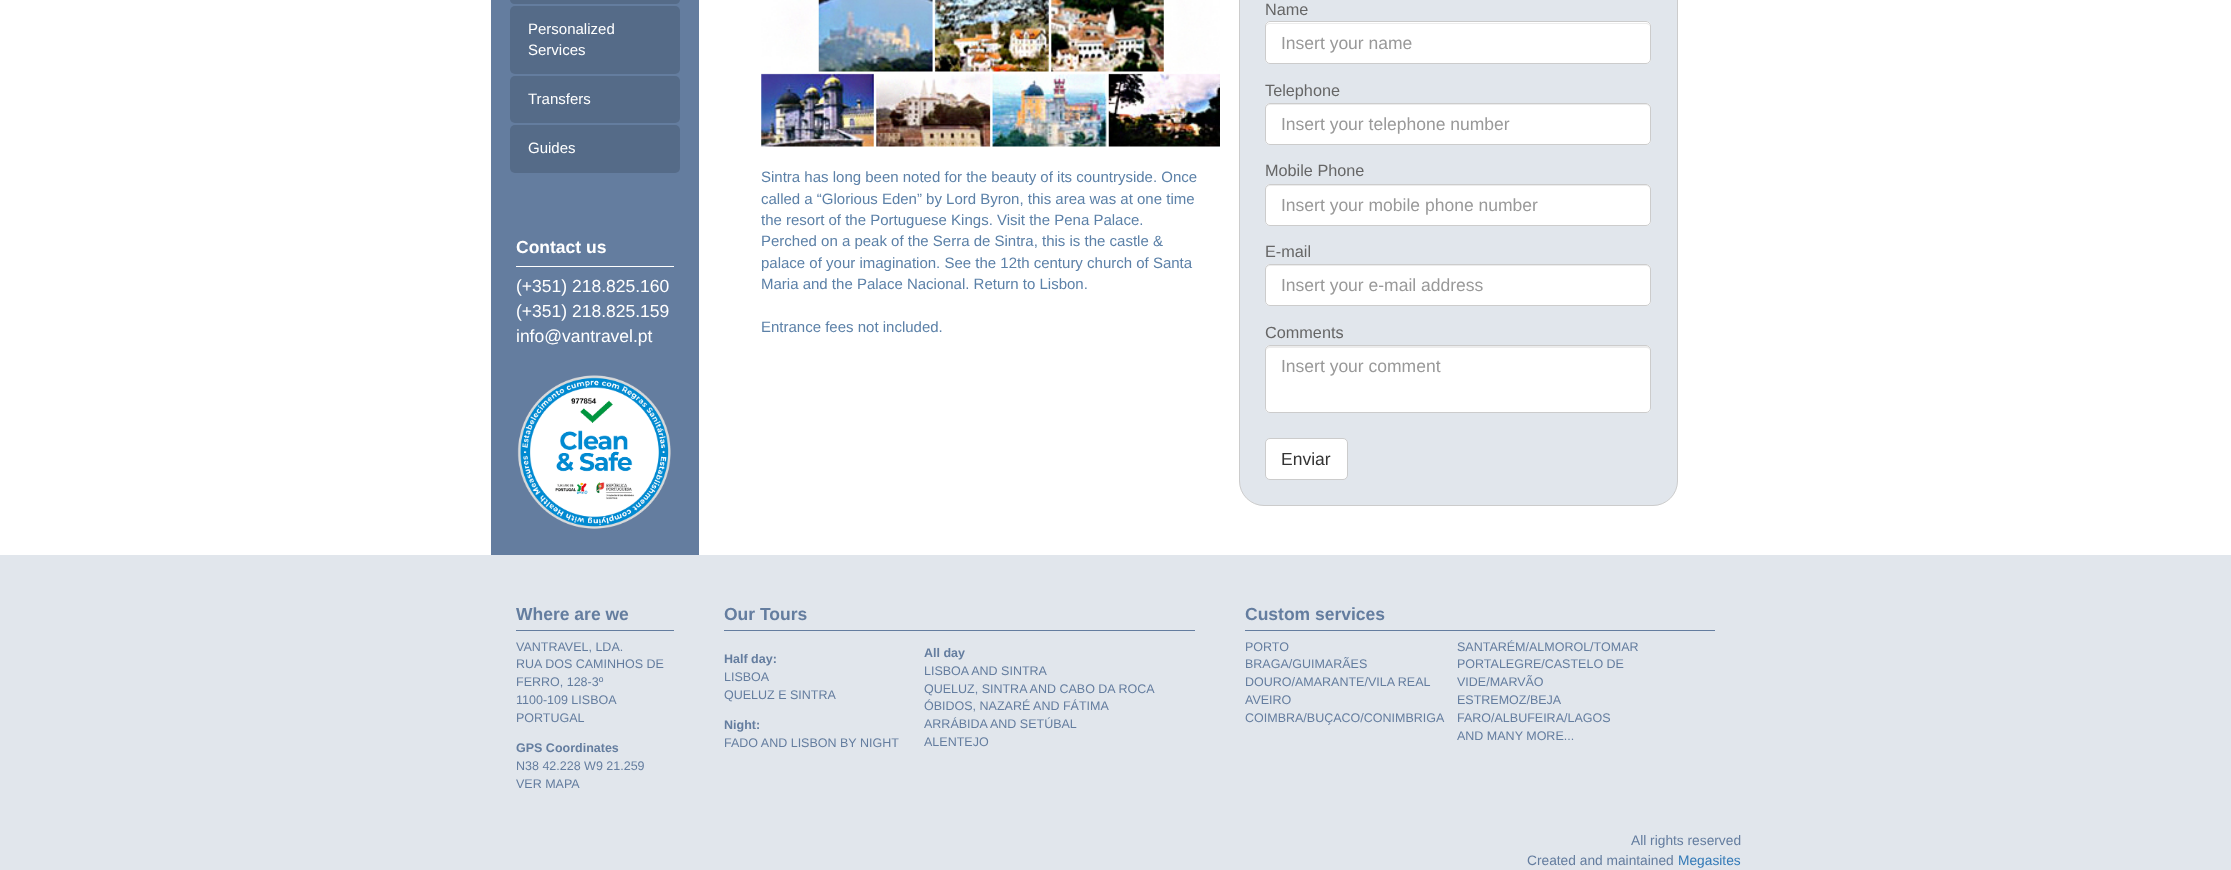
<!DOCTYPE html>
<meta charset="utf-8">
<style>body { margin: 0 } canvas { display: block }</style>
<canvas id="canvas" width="2231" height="870"></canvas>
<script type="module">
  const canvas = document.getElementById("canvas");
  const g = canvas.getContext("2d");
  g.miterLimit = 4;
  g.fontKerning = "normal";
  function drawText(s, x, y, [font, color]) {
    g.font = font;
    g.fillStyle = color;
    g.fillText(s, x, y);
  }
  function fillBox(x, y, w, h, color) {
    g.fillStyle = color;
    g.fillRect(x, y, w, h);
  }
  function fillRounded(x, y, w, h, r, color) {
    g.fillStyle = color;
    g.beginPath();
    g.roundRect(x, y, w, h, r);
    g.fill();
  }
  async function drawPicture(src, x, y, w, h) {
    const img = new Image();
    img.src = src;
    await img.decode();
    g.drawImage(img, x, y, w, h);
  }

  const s1 = ["15px Liberation Sans", "#FFFFFF"];
  const s2 = ["bold 17.5px Liberation Sans", "#FFFFFF"];
  const s3 = ["17.5px Liberation Sans", "#FFFFFF"];
  const s4 = ["15px Liberation Sans", "#5C81A8"];
  const s5 = ["16.25px Liberation Sans", "#666666"];
  const s6 = ["17.5px Liberation Sans", "#999999"];
  const s7 = ["17.5px Liberation Sans", "#333333"];
  const s8 = ["bold 17.5px Liberation Sans", "#647D9F"];
  const s9 = ["12.5px Liberation Sans", "#647D9F"];
  const s10 = ["bold 12.5px Liberation Sans", "#647D9F"];
  const s11 = ["13.75px Liberation Sans", "#647D9F"];
  const s12 = ["13.75px Liberation Sans", "#337AB7"];

  fillBox(0, 0, 2231, 870, "#E1E6EC");
  fillBox(0, 0, 2231, 555, "#FFFFFF");
  fillBox(491, 0, 208, 555, "#647D9F");
  fillRounded(510, -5, 170, 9, 5, "#556B88");
  fillRounded(510, 6, 170, 68, 5, "#556B88");
  drawText("Personalized", 528, 34, s1);
  drawText("Services", 528, 55, s1);
  fillRounded(510, 76, 170, 47, 5, "#556B88");
  drawText("Transfers", 528, 104, s1);
  fillRounded(510, 125, 170, 48, 5, "#556B88");
  drawText("Guides", 528, 153, s1);
  fillBox(516, 266, 158, 1, "#FFFFFF");
  drawText("Contact us", 516, 253, s2);
  drawText("(+351) 218.825.160", 516, 292, s3);
  drawText("(+351) 218.825.159", 516, 317, s3);
  drawText("info@vantravel.pt", 516, 342, s3);
  await drawPicture("pic1.png", 517, 375, 154, 154);
  await drawPicture("pic2.png", 761, 0, 459, 147);
  drawText("Sintra has long been noted for the beauty of its countryside. Once", 761, 182, s4);
  drawText("called a “Glorious Eden” by Lord Byron, this area was at one time", 761, 204, s4);
  drawText("the resort of the Portuguese Kings. Visit the Pena Palace.", 761, 225, s4);
  drawText("Perched on a peak of the Serra de Sintra, this is the castle &", 761, 246, s4);
  drawText("palace of your imagination. See the 12th century church of Santa", 761, 268, s4);
  drawText("Maria and the Palace Nacional. Return to Lisbon.", 761, 289, s4);
  drawText("Entrance fees not included.", 761, 332, s4);
  g.fillStyle = "#E1E6EC";
  g.beginPath();
  g.roundRect(1239.5, -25.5, 438, 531, 24.5);
  g.fill();
  g.strokeStyle = "#CCCCCC";
  g.stroke();
  drawText("Name", 1265, 15, s5);
  fillRounded(1265, 21, 386, 43, 5, "#FFFFFF");
  g.fillStyle = "#ECECEC";
  g.beginPath();
  g.moveTo(1270, 24);
  g.lineTo(1646, 24);
  g.bezierCurveTo(1648, 24, 1650, 25, 1650, 28);
  g.bezierCurveTo(1650, 25, 1649, 23, 1646, 23);
  g.lineTo(1270, 23);
  g.bezierCurveTo(1267, 23, 1266, 25, 1266, 28);
  g.bezierCurveTo(1266, 25, 1268, 24, 1270, 24);
  g.closePath();
  g.fill();
  g.beginPath();
  g.roundRect(1265.5, 21.5, 385, 42, 4.5);
  g.stroke();
  drawText("Insert your name", 1281, 49, s6);
  drawText("Telephone", 1265, 96, s5);
  fillRounded(1265, 103, 386, 42, 5, "#FFFFFF");
  g.fillStyle = "#ECECEC";
  g.beginPath();
  g.moveTo(1270, 105);
  g.lineTo(1646, 105);
  g.bezierCurveTo(1648, 105, 1650, 107, 1650, 109);
  g.bezierCurveTo(1650, 106, 1649, 104, 1646, 104);
  g.lineTo(1270, 104);
  g.bezierCurveTo(1267, 104, 1266, 106, 1266, 109);
  g.bezierCurveTo(1266, 107, 1268, 105, 1270, 105);
  g.closePath();
  g.fill();
  g.beginPath();
  g.roundRect(1265.5, 103.5, 385, 41, 4.5);
  g.stroke();
  drawText("Insert your telephone number", 1281, 130, s6);
  drawText("Mobile Phone", 1265, 176, s5);
  fillRounded(1265, 184, 386, 42, 5, "#FFFFFF");
  g.fillStyle = "#ECECEC";
  g.beginPath();
  g.moveTo(1270, 186);
  g.lineTo(1646, 186);
  g.bezierCurveTo(1648, 186, 1650, 188, 1650, 190);
  g.bezierCurveTo(1650, 187, 1649, 185, 1646, 185);
  g.lineTo(1270, 185);
  g.bezierCurveTo(1267, 185, 1266, 187, 1266, 190);
  g.bezierCurveTo(1266, 188, 1268, 186, 1270, 186);
  g.closePath();
  g.fill();
  g.beginPath();
  g.roundRect(1265.5, 184.5, 385, 41, 4.5);
  g.stroke();
  drawText("Insert your mobile phone number", 1281, 211, s6);
  drawText("E-mail", 1265, 257, s5);
  fillRounded(1265, 264, 386, 42, 5, "#FFFFFF");
  g.fillStyle = "#ECECEC";
  g.beginPath();
  g.moveTo(1270, 266);
  g.lineTo(1646, 266);
  g.bezierCurveTo(1648, 266, 1650, 268, 1650, 270);
  g.bezierCurveTo(1650, 267, 1649, 265, 1646, 265);
  g.lineTo(1270, 265);
  g.bezierCurveTo(1267, 265, 1266, 267, 1266, 270);
  g.bezierCurveTo(1266, 268, 1268, 266, 1270, 266);
  g.closePath();
  g.fill();
  g.beginPath();
  g.roundRect(1265.5, 264.5, 385, 41, 4.5);
  g.stroke();
  drawText("Insert your e-mail address", 1281, 291, s6);
  drawText("Comments", 1265, 338, s5);
  fillRounded(1265, 345, 386, 68, 5, "#FFFFFF");
  g.fillStyle = "#ECECEC";
  g.beginPath();
  g.moveTo(1270, 348);
  g.lineTo(1646, 348);
  g.bezierCurveTo(1648, 348, 1650, 349, 1650, 351);
  g.bezierCurveTo(1650, 348, 1649, 346, 1646, 346);
  g.lineTo(1270, 346);
  g.bezierCurveTo(1267, 346, 1266, 348, 1266, 351);
  g.bezierCurveTo(1266, 349, 1268, 348, 1270, 348);
  g.closePath();
  g.fill();
  g.beginPath();
  g.roundRect(1265.5, 345.5, 385, 67, 4.5);
  g.stroke();
  drawText("Insert your comment", 1281, 372, s6);
  g.fillStyle = "#FFFFFF";
  g.beginPath();
  g.roundRect(1265.5, 438.5, 82, 41, 4.5);
  g.fill();
  g.stroke();
  drawText("Enviar", 1281, 465, s7);
  fillBox(516, 630, 158, 1, "#647D9F");
  drawText("Where are we", 516, 620, s8);
  drawText("VANTRAVEL, LDA.", 516, 651, s9);
  drawText("RUA DOS CAMINHOS DE", 516, 668, s9);
  drawText("FERRO, 128-3º", 516, 686, s9);
  drawText("1100-109 LISBOA", 516, 704, s9);
  drawText("PORTUGAL", 516, 722, s9);
  drawText("GPS Coordinates", 516, 752, s10);
  drawText("N38 42.228 W9 21.259", 516, 770, s9);
  drawText("VER MAPA", 516, 788, s9);
  fillBox(724, 630, 471, 1, "#647D9F");
  drawText("Our Tours", 724, 620, s8);
  drawText("Half day:", 724, 663, s10);
  drawText("LISBOA", 724, 681, s9);
  drawText("QUELUZ E SINTRA", 724, 699, s9);
  drawText("Night:", 724, 729, s10);
  drawText("FADO AND LISBON BY NIGHT", 724, 747, s9);
  drawText("All day", 924, 657, s10);
  drawText("LISBOA AND SINTRA", 924, 675, s9);
  drawText("QUELUZ, SINTRA AND CABO DA ROCA", 924, 693, s9);
  drawText("ÓBIDOS, NAZARÉ AND FÁTIMA", 924, 710, s9);
  drawText("ARRÁBIDA AND SETÚBAL", 924, 728, s9);
  drawText("ALENTEJO", 924, 746, s9);
  fillBox(1245, 630, 470, 1, "#647D9F");
  drawText("Custom services", 1245, 620, s8);
  drawText("PORTO", 1245, 651, s9);
  drawText("BRAGA/GUIMARÃES", 1245, 668, s9);
  drawText("DOURO/AMARANTE/VILA REAL", 1245, 686, s9);
  drawText("AVEIRO", 1245, 704, s9);
  drawText("COIMBRA/BUÇACO/CONIMBRIGA", 1245, 722, s9);
  drawText("SANTARÉM/ALMOROL/TOMAR", 1457, 651, s9);
  drawText("PORTALEGRE/CASTELO DE", 1457, 668, s9);
  drawText("VIDE/MARVÃO", 1457, 686, s9);
  drawText("ESTREMOZ/BEJA", 1457, 704, s9);
  drawText("FARO/ALBUFEIRA/LAGOS", 1457, 722, s9);
  drawText("AND MANY MORE...", 1457, 740, s9);
  drawText("All rights reserved", 1631, 845, s11);
  drawText("Created and maintained", 1527, 865, s11);
  drawText("Megasites", 1678, 865, s12);
</script>
